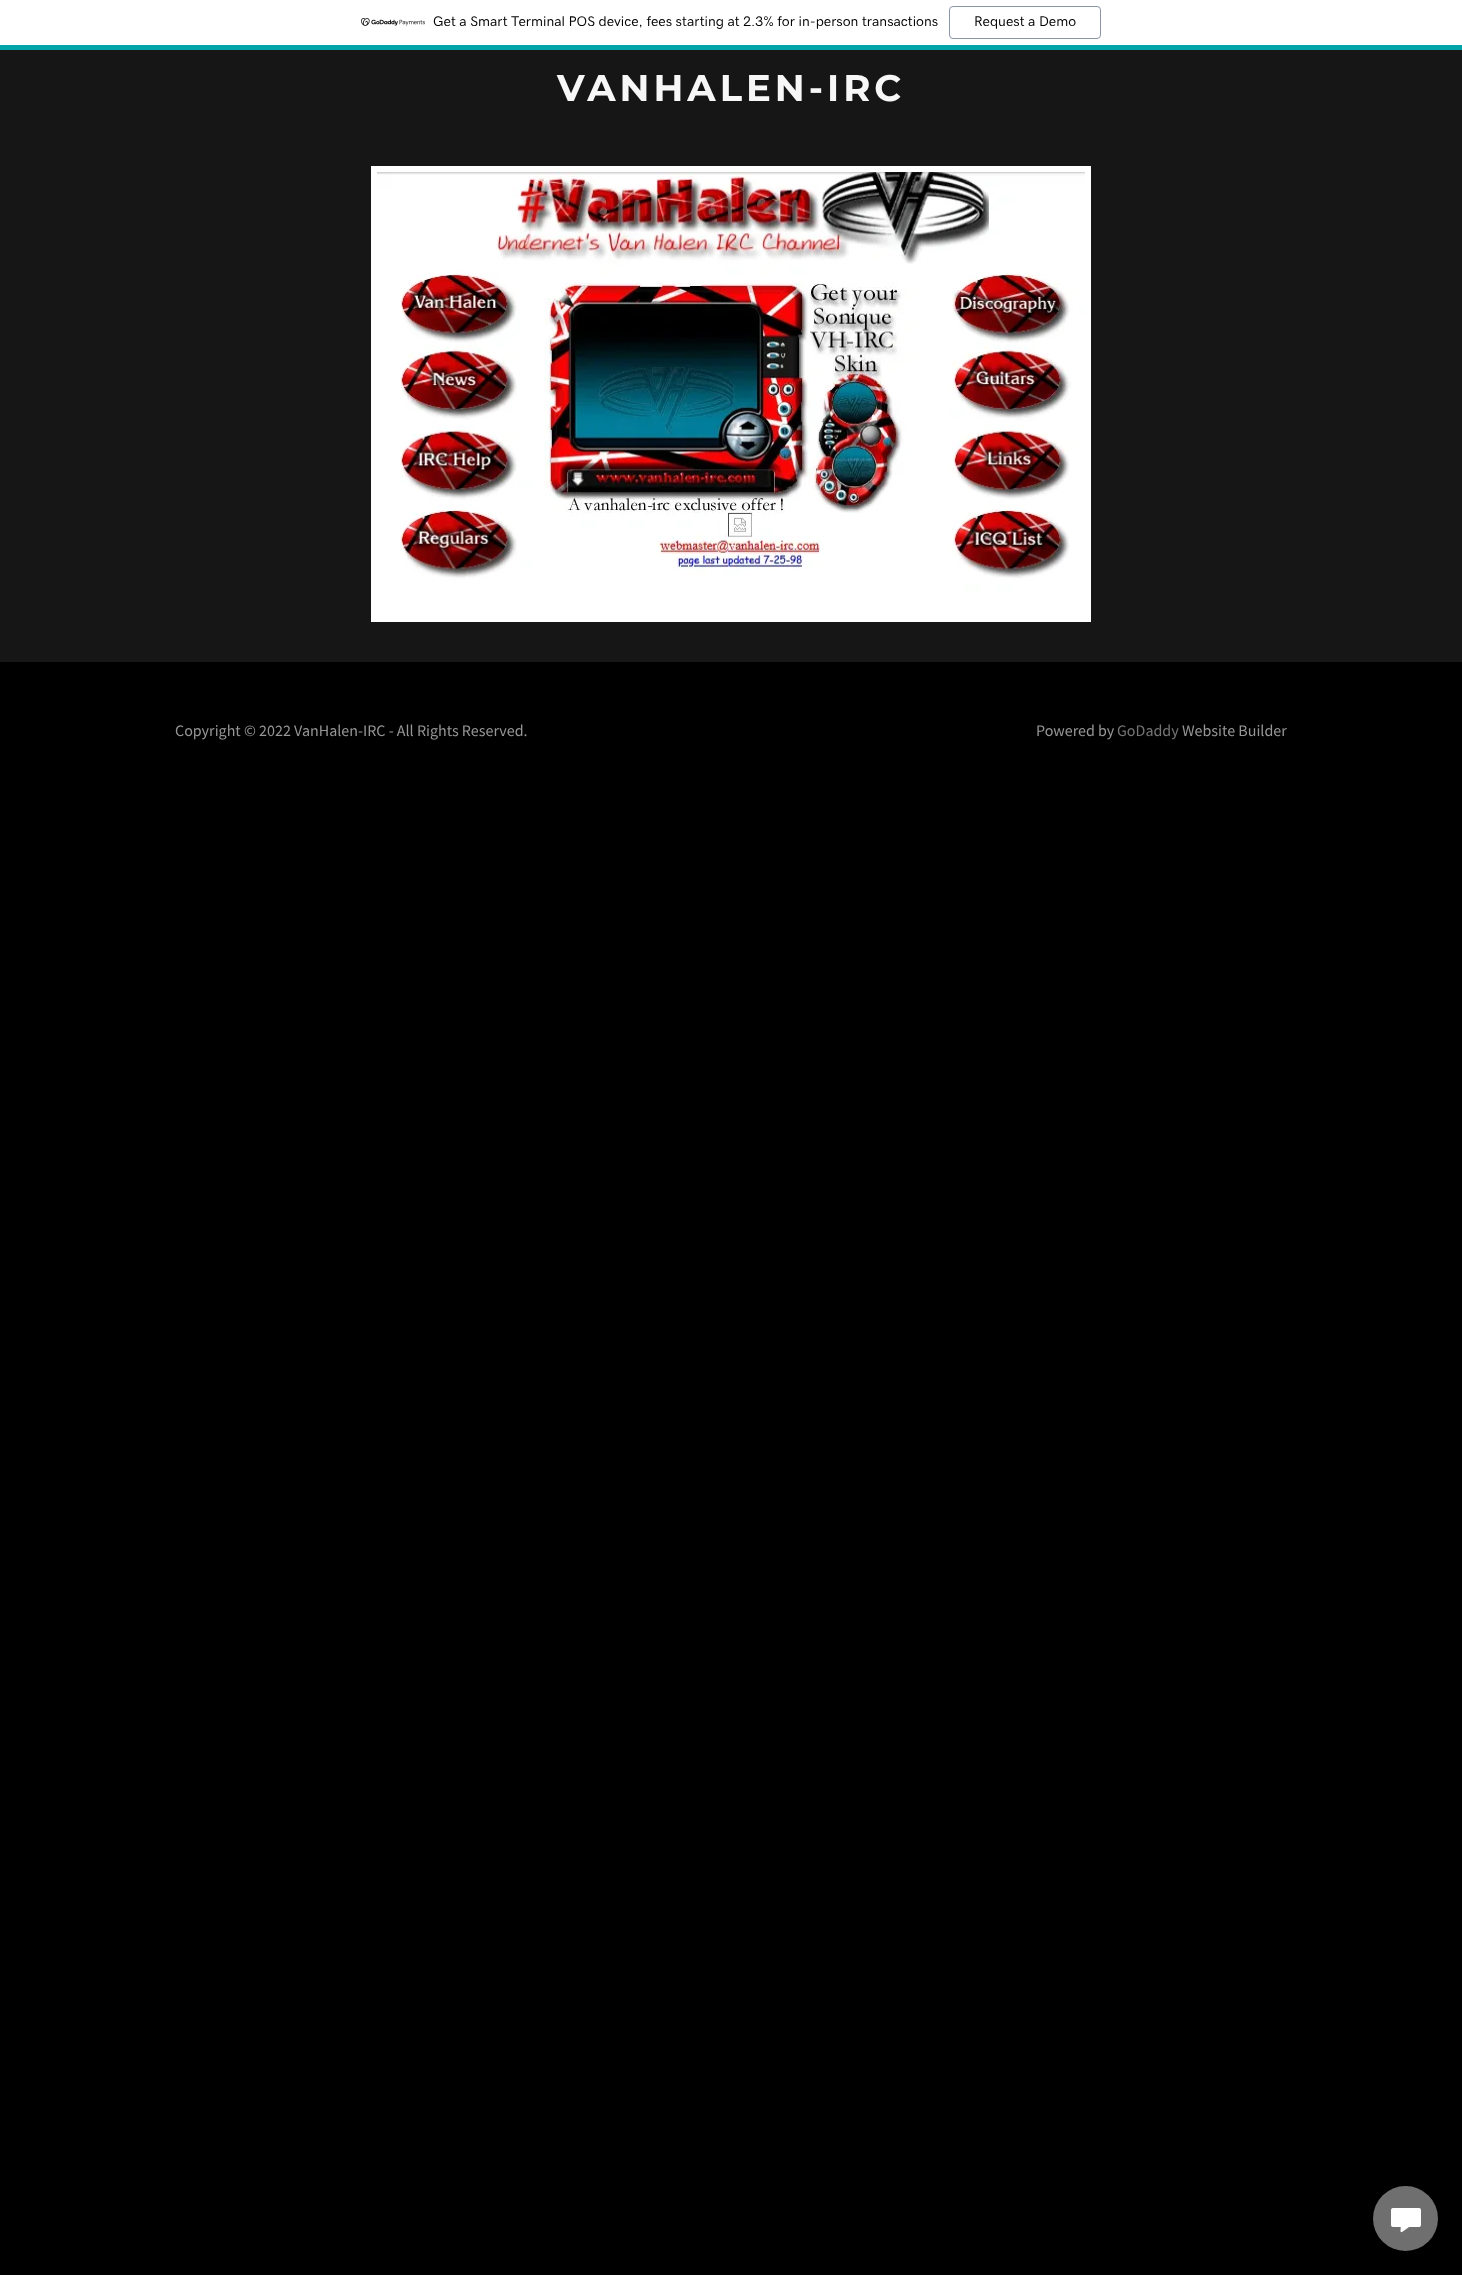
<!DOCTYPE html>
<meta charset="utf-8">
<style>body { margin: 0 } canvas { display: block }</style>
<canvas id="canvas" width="1462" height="2275"></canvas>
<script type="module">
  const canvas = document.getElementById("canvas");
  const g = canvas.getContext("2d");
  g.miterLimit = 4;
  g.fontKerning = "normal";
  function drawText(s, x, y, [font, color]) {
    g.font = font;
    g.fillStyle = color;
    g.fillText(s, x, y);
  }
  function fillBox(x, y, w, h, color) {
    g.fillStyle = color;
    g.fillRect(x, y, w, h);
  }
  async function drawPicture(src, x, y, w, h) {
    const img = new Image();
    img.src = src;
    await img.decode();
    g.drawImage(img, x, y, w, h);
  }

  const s1 = ["500 14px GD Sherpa", "#000000"];
  const s2 = ["bold 37px Montserrat", "#F7F7F7"];
  const s3 = ["16px Source Sans Pro", "#969696"];
  const s4 = ["16px Source Sans Pro", "#757575"];

  fillBox(0, 0, 1462, 2275, "#000000");
  fillBox(0, 50, 1462, 612, "#161616");
  fillBox(0, 0, 1462, 45, "#FFFFFF");
  fillBox(0, 45, 1462, 5, "#00A4A6");
  await drawPicture("pic1.png", 361, 18, 64, 8);
  drawText("Get a Smart Terminal POS device, fees starting at 2.3% for in-person transactions", 433, 26, s1);
  g.beginPath();
  g.roundRect(949.5, 6.5, 151, 32, 3.5);
  g.strokeStyle = "#8995A9";
  g.stroke();
  drawText("Request a Demo", 974, 26, s1);
  g.letterSpacing = "4px";
  drawText("VANHALEN-IRC", 557, 101, s2);
  g.strokeStyle = "#FFFFFF";
  g.lineWidth = 6;
  g.strokeRect(374, 169, 714, 450);
  await drawPicture("pic2.png", 377, 172, 708, 444);
  g.letterSpacing = "0px";
  drawText("Copyright © 2022 VanHalen-IRC - All Rights Reserved.", 175, 736, s3);
  drawText("Powered by", 1036, 736, s3);
  drawText("GoDaddy", 1117, 736, s4);
  drawText("Website Builder", 1182, 736, s3);
  g.fillStyle = "#6F6F6F";
  g.beginPath();
  g.arc(1405.5, 2218.5, 32.5, 0, Math.PI * 2);
  g.fill();
  await drawPicture("pic3.png", 1391, 2208, 30, 25);
</script>
